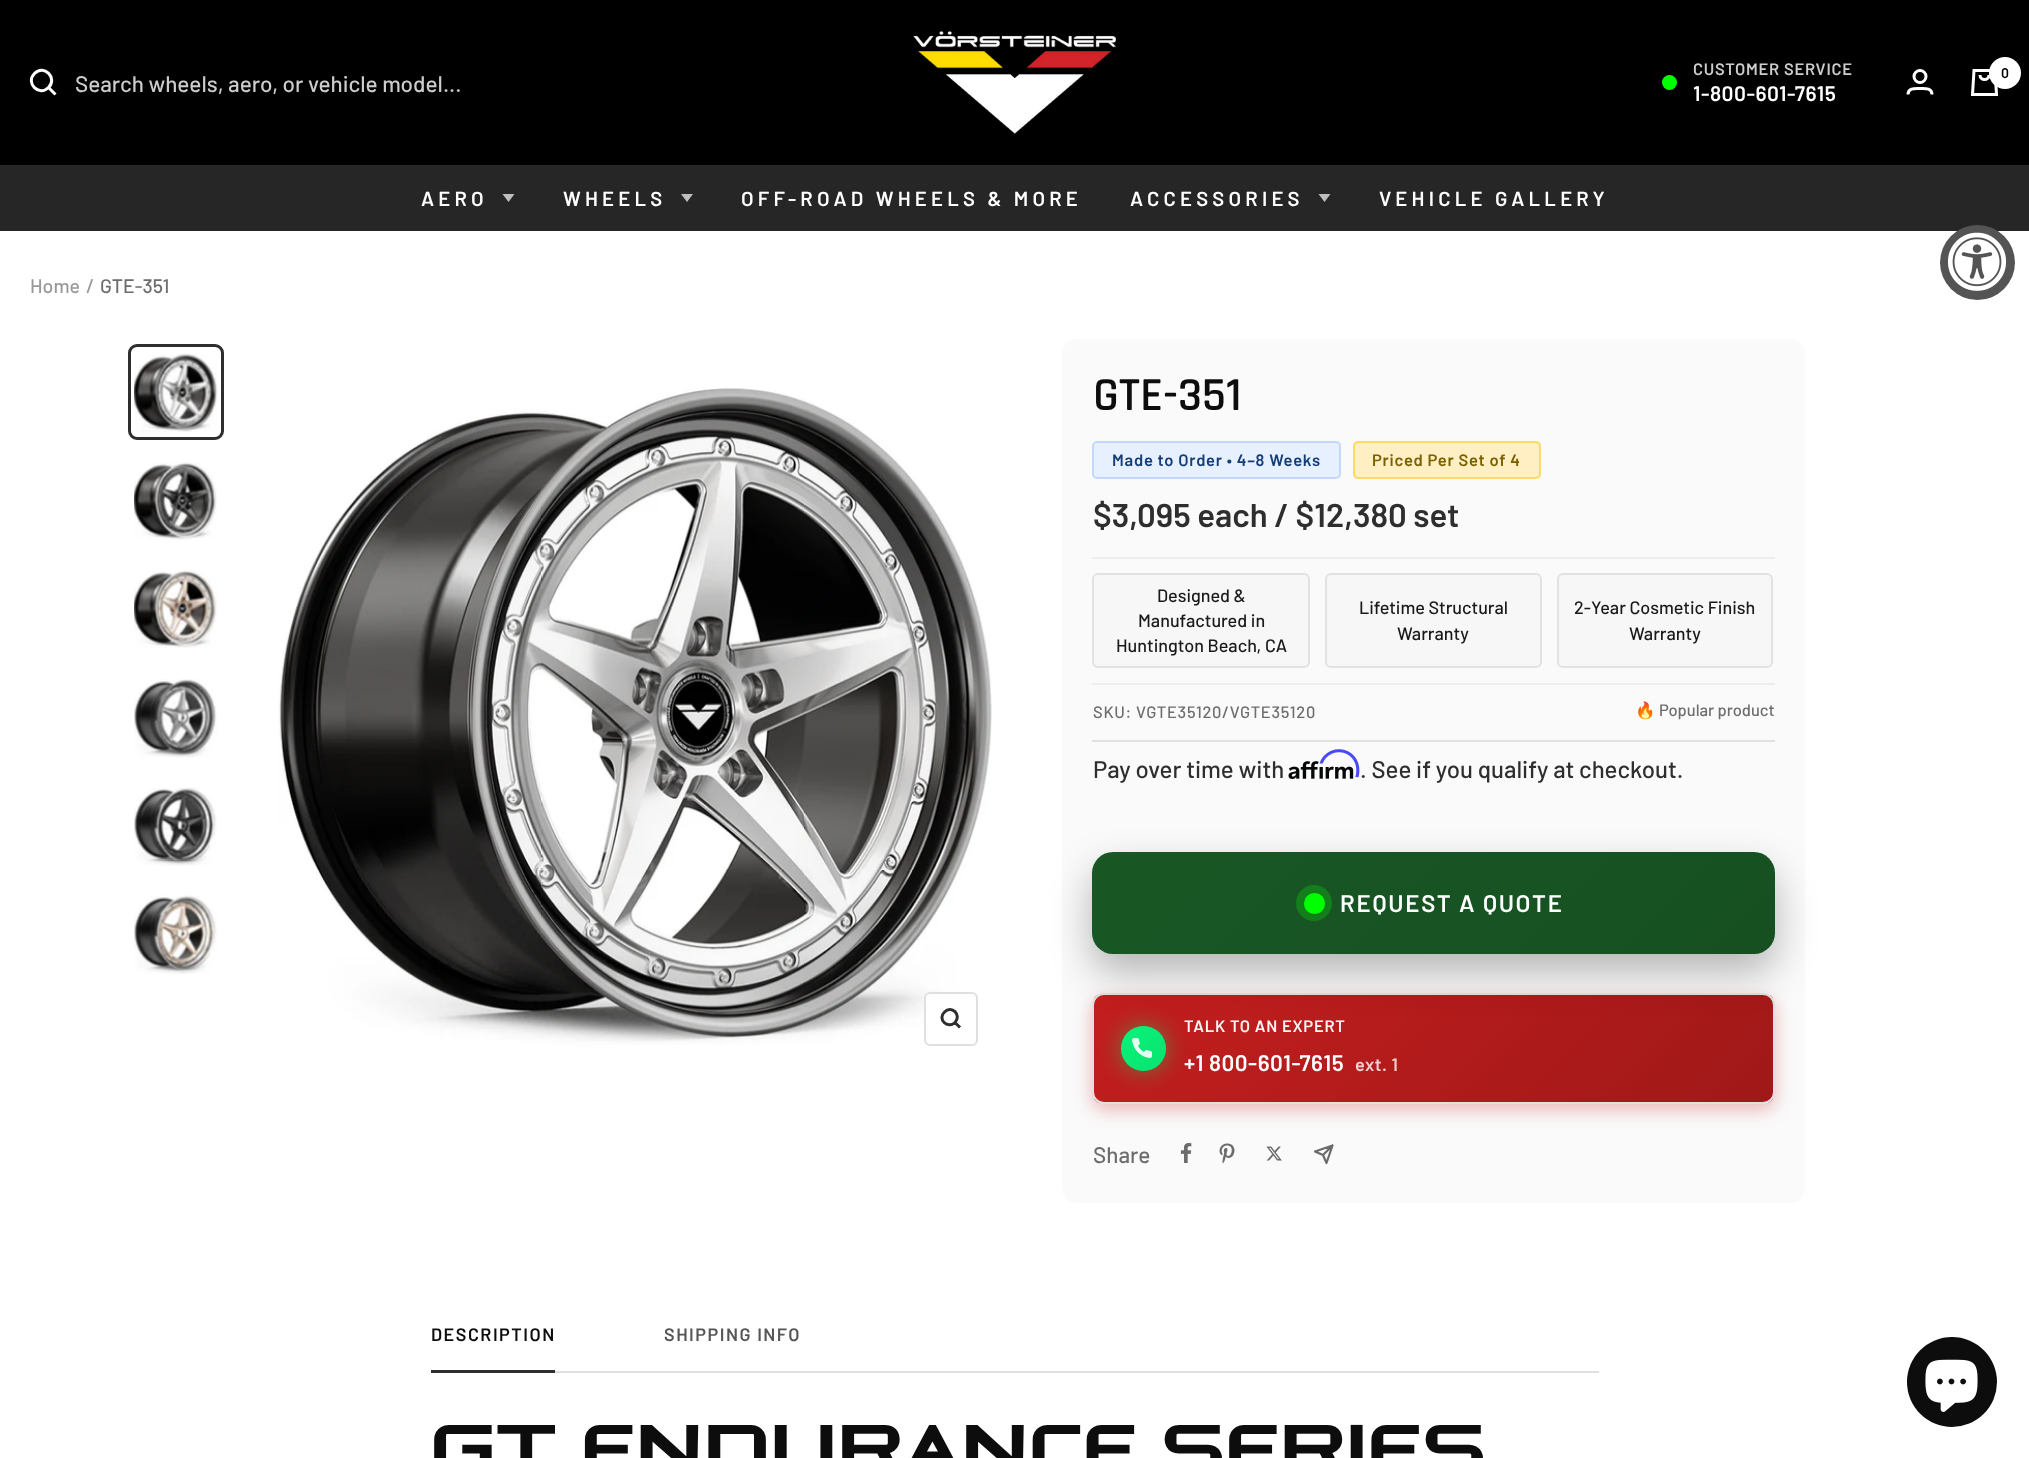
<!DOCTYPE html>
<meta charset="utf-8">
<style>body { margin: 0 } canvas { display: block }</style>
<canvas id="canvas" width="2029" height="1458"></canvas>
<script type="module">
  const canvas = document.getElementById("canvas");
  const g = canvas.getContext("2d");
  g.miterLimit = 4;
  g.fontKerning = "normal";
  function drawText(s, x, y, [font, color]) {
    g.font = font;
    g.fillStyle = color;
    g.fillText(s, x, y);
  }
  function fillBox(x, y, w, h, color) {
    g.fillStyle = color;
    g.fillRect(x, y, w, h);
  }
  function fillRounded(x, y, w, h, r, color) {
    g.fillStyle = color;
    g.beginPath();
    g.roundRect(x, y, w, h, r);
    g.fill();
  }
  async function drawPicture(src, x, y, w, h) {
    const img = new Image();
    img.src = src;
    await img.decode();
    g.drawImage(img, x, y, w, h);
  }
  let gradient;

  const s1 = ["500 22.5px Barlow", "#CCCCCC"];
  const s2 = ["600 16.5px Barlow", "#CCCCCC"];
  const s3 = ["600 21px Barlow", "#FFFFFF"];
  const s4 = ["600 14px Barlow", "#000000"];
  const s5 = ["600 20.25px Barlow", "#FFFFFF"];
  const s6 = ["500 19.5px Barlow", "#999999"];
  const s7 = ["500 19.5px Barlow", "#6D6D6D"];
  const s8 = ["600 48px Rajdhani", "#0D0D0D"];
  const s9 = ["600 16.5px Barlow", "#153E75"];
  const s10 = ["600 16.5px Barlow", "#7A6000"];
  const s11 = ["600 33px Barlow", "#2E2E2E"];
  const s12 = ["500 18px Barlow", "#1A1A1A"];
  const s13 = ["500 16.5px Barlow", "#6D6D6D"];
  const s14 = ["16.5px Noto Color Emoji", "#6D6D6D"];
  const s15 = ["500 24px Barlow", "#2E2E2E"];
  const s16 = ["600 24px Barlow", "#FFFFFF"];
  const s17 = ["600 16.5px Barlow", "#FCF4F4"];
  const s18 = ["600 22.5px Barlow", "#FFFFFF"];
  const s19 = ["600 18px Barlow", "#F0D1D1"];
  const s20 = ["500 22.5px Barlow", "#6D6D6D"];
  const s21 = ["600 18px Barlow", "#0D0D0D"];
  const s22 = ["600 18px Barlow", "#565656"];
  const s23 = ["bold 66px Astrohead", "#0D0D0D"];

  fillBox(0, 0, 2029, 1458, "#FFFFFF");
  fillBox(0, 0, 2029, 165, "#000000");
  g.beginPath();
  g.moveTo(48.5, 87.5);
  g.bezierCurveTo(58, 78, 44, 64, 34.5, 73.5);
  g.bezierCurveTo(25, 83, 39, 97, 48.5, 87.5);
  g.closePath();
  g.moveTo(48.5, 87.5);
  g.lineTo(55.5, 94.5);
  g.strokeStyle = "#FFFFFF";
  g.lineWidth = 3;
  g.stroke();
  drawText("Search wheels, aero, or vehicle model...", 75, 92, s1);
  await drawPicture("pic1.png", 913, 31, 203, 103);
  g.fillStyle = "#00FF00";
  g.beginPath();
  g.arc(1669.5, 82.5, 7.5, 0, Math.PI * 2);
  g.fill();
  g.letterSpacing = "0.75px";
  drawText("CUSTOMER SERVICE", 1693, 75, s2);
  g.letterSpacing = "0.5px";
  drawText("1-800-601-7615", 1693, 101, s3);
  g.beginPath();
  g.arc(1920, 76.5, 6, 0, Math.PI * 2);
  g.stroke();
  g.beginPath();
  g.moveTo(1908, 94.5);
  g.bezierCurveTo(1908, 87.5, 1915.5, 88.5, 1920, 88.5);
  g.bezierCurveTo(1924.5, 88.5, 1932, 87.5, 1932, 94.5);
  g.stroke();
  g.beginPath();
  g.moveTo(1974, 70.5);
  g.lineTo(1995, 70.5);
  g.lineTo(1996.5, 94.5);
  g.lineTo(1972.5, 94.5);
  g.closePath();
  g.moveTo(1980, 75);
  g.bezierCurveTo(1980, 81, 1989, 81, 1989, 75);
  g.stroke();
  g.beginPath();
  g.arc(2005, 73, 16, 0, Math.PI * 2);
  g.fill();
  g.letterSpacing = "0px";
  drawText("0", 2001, 78, s4);
  fillBox(0, 165, 2029, 66, "#262626");
  g.letterSpacing = "4.2px";
  drawText("AERO", 421, 206, s5);
  g.fillStyle = "#BEBEBE";
  g.beginPath();
  g.moveTo(502.5, 194);
  g.lineTo(514.5, 194);
  g.lineTo(508.5, 202);
  g.closePath();
  g.fill();
  drawText("WHEELS", 563, 206, s5);
  g.fillStyle = "#BEBEBE";
  g.beginPath();
  g.moveTo(681, 194);
  g.lineTo(693, 194);
  g.lineTo(687, 202);
  g.closePath();
  g.fill();
  drawText("OFF-ROAD WHEELS & MORE", 741, 206, s5);
  drawText("ACCESSORIES", 1130, 206, s5);
  g.fillStyle = "#BEBEBE";
  g.beginPath();
  g.moveTo(1318.5, 194);
  g.lineTo(1330.5, 194);
  g.lineTo(1324.5, 202);
  g.closePath();
  g.fill();
  drawText("VEHICLE GALLERY", 1379, 206, s5);
  g.fillStyle = "#545454";
  g.beginPath();
  g.arc(1977.5, 262.5, 37.5, 0, Math.PI * 2);
  g.fill();
  await drawPicture("pic2.png", 1947, 232, 60, 59);
  g.letterSpacing = "0px";
  drawText("Home", 30, 293, s6);
  drawText("/", 86, 293, s6);
  drawText("GTE-351", 100, 293, s7);
  await drawPicture("pic3.png", 134, 353, 84, 79);
  g.beginPath();
  g.roundRect(129.5, 345.5, 93, 93, 7.5);
  g.strokeStyle = "#2E2E2E";
  g.stroke();
  await drawPicture("pic4.png", 134, 462, 83, 78);
  await drawPicture("pic5.png", 134, 570, 84, 78);
  await drawPicture("pic6.png", 134, 679, 84, 79);
  await drawPicture("pic7.png", 134, 787, 83, 79);
  await drawPicture("pic8.png", 134, 895, 84, 79);
  await drawPicture("pic9.png", 278, 388, 714, 657);
  g.fillStyle = "#FFFFFF";
  g.beginPath();
  g.roundRect(925, 993, 52, 52, 5);
  g.fill();
  g.strokeStyle = "#E0E0E0";
  g.lineWidth = 2;
  g.stroke();
  g.beginPath();
  g.moveTo(955, 1022.5);
  g.bezierCurveTo(962, 1015, 951.5, 1004.5, 944.5, 1012);
  g.bezierCurveTo(937, 1019, 947.5, 1029.5, 955, 1022.5);
  g.closePath();
  g.moveTo(955, 1022.5);
  g.lineTo(960, 1027.5);
  g.strokeStyle = "#2E2E2E";
  g.lineWidth = 3;
  g.stroke();
  fillRounded(1062, 339, 743, 864, 15, "#FAFAFA");
  fillBox(1092, 740, 683, 2, "#E0E0E0");
  drawText("GTE-351", 1093, 410, s8);
  g.fillStyle = "#E6F0FF";
  g.beginPath();
  g.roundRect(1093, 442, 247, 36, 4);
  g.fill();
  g.strokeStyle = "#C4D8FF";
  g.lineWidth = 2;
  g.stroke();
  g.letterSpacing = "0.75px";
  drawText("Made to Order • 4–8 Weeks", 1112, 466, s9);
  g.fillStyle = "#FFEFC2";
  g.beginPath();
  g.roundRect(1354, 442, 186, 36, 4);
  g.fill();
  g.strokeStyle = "#FFD966";
  g.stroke();
  drawText("Priced Per Set of 4", 1372, 466, s10);
  g.letterSpacing = "0px";
  drawText("$3,095 each / $12,380 set", 1093, 527, s11);
  fillBox(1092, 557, 683, 2, "#EEEEEE");
  fillBox(1092, 683, 683, 2, "#EEEEEE");
  g.fillStyle = "#F7F7F7";
  g.beginPath();
  g.roundRect(1093, 574, 216, 93, 5);
  g.fill();
  g.strokeStyle = "#E2E2E2";
  g.stroke();
  drawText("Designed &", 1157, 602, s12);
  drawText("Manufactured in", 1138, 627, s12);
  drawText("Huntington Beach, CA", 1116, 652, s12);
  g.fillStyle = "#F7F7F7";
  g.beginPath();
  g.roundRect(1326, 574, 215, 93, 5);
  g.fill();
  g.stroke();
  drawText("Lifetime Structural", 1359, 614, s12);
  drawText("Warranty", 1397, 640, s12);
  g.fillStyle = "#F7F7F7";
  g.beginPath();
  g.roundRect(1558, 574, 214, 93, 5);
  g.fill();
  g.stroke();
  drawText("2-Year Cosmetic Finish", 1574, 614, s12);
  drawText("Warranty", 1629, 640, s12);
  g.letterSpacing = "0.7px";
  drawText("SKU: VGTE35120/VGTE35120", 1093, 718, s13);
  g.letterSpacing = "0px";
  drawText("🔥", 1635, 716, s14);
  drawText("Popular product", 1659, 716, s13);
  drawText("Pay over time with", 1093, 778, s15);
  await drawPicture("pic11.png", 1288, 761, 66, 18);
  await drawPicture("pic10.png", 1319, 749, 41, 29);
  drawText(". See if you qualify at checkout.", 1360, 778, s15);
  g.fillStyle = "rgba(196, 30, 30, 0.3)";
  g.filter = "blur(9px)";
  g.beginPath();
  g.roundRect(1092, 999, 683, 111, 12);
  g.fill();
  g.filter = "none";
  g.save();
  g.beginPath();
  g.roundRect(1092, 993, 683, 111, 12);
  g.clip();
  gradient = g.createLinearGradient(1236, 852, 1630, 1245);
  gradient.addColorStop(0, "#C41E1E");
  gradient.addColorStop(1, "#A01818");
  g.fillStyle = gradient;
  g.fillRect(1094, 995, 679, 108);
  g.restore();
  g.beginPath();
  g.roundRect(1093, 994, 681, 109, 11);
  g.strokeStyle = "#E0E0E0";
  g.stroke();
  g.fillStyle = "rgba(0, 0, 0, 0.28)";
  g.filter = "blur(19.5px)";
  g.beginPath();
  g.roundRect(1092, 870, 683, 102, 21);
  g.fill();
  g.filter = "none";
  gradient = g.createLinearGradient(1237, 707, 1629, 1099);
  gradient.addColorStop(0, "#195725");
  gradient.addColorStop(1, "#165021");
  g.fillStyle = gradient;
  g.beginPath();
  g.roundRect(1092, 852, 683, 102, 21);
  g.fill();
  g.beginPath();
  g.arc(1314, 903, 14, 0, Math.PI * 2);
  g.strokeStyle = "#127F1B";
  g.lineWidth = 8;
  g.stroke();
  g.fillStyle = "#00FF00";
  g.beginPath();
  g.arc(1314.5, 903.5, 10.5, 0, Math.PI * 2);
  g.fill();
  g.fillStyle = "rgba(0, 255, 0, 0.45)";
  g.beginPath();
  g.arc(1314.5, 903.5, 10.5, 0, Math.PI * 2);
  g.fill();
  g.letterSpacing = "1.75px";
  drawText("REQUEST A QUOTE", 1340, 912, s16);
  g.save();
  g.beginPath();
  g.moveTo(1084, 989);
  g.lineTo(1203, 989);
  g.lineTo(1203, 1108);
  g.lineTo(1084, 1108);
  g.closePath();
  g.moveTo(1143.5, 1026);
  g.bezierCurveTo(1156, 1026, 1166, 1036, 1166, 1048.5);
  g.bezierCurveTo(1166, 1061, 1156, 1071, 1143.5, 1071);
  g.bezierCurveTo(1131, 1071, 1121, 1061, 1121, 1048.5);
  g.bezierCurveTo(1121, 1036, 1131, 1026, 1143.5, 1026);
  g.closePath();
  g.clip("evenodd");
  g.fillStyle = "rgba(0, 255, 127, 0.41)";
  g.filter = "blur(12px)";
  g.beginPath();
  g.roundRect(1121, 1026, 45, 45, 22.5);
  g.fill();
  g.filter = "none";
  g.restore();
  gradient = g.createLinearGradient(1121, 1026, 1166, 1071);
  gradient.addColorStop(0, "rgba(0, 255, 127, 0.9)");
  gradient.addColorStop(1, "rgba(0, 215, 106, 0.9)");
  g.fillStyle = gradient;
  g.beginPath();
  g.arc(1143.5, 1048.5, 22.5, 0, Math.PI * 2);
  g.fill();
  g.fillStyle = "rgba(0, 255, 127, 0.29)";
  g.beginPath();
  g.arc(1143.5, 1048.5, 22.5, 0, Math.PI * 2);
  g.fill();
  g.beginPath();
  g.arc(1143.5, 1048.5, 22.5, 0, Math.PI * 2);
  g.fill();
  await drawPicture("pic12.png", 1132, 1038, 20, 20);
  g.letterSpacing = "0.75px";
  drawText("TALK TO AN EXPERT", 1184, 1032, s17);
  g.letterSpacing = "0.5px";
  drawText("+1 800-601-7615", 1184, 1071, s18);
  drawText("ext. 1", 1355, 1071, s19);
  g.letterSpacing = "0px";
  drawText("Share", 1093, 1163, s20);
  await drawPicture("pic13.png", 1180, 1143, 12, 20);
  await drawPicture("pic14.png", 1219, 1143, 16, 21);
  await drawPicture("pic15.png", 1266, 1146, 16, 15);
  g.beginPath();
  g.moveTo(1332.5, 1145.5);
  g.lineTo(1326.5, 1163);
  g.lineTo(1323, 1155);
  g.moveTo(1332.5, 1145.5);
  g.lineTo(1315, 1151.5);
  g.lineTo(1323, 1155);
  g.moveTo(1332.5, 1145.5);
  g.lineTo(1323, 1155);
  g.strokeStyle = "#6B6B6B";
  g.lineWidth = 2.2;
  g.lineCap = "round";
  g.lineJoin = "round";
  g.stroke();
  fillBox(555, 1371, 1044, 2, "#E0E0E0");
  g.letterSpacing = "1.5px";
  drawText("DESCRIPTION", 431, 1341, s21);
  drawText("SHIPPING INFO", 664, 1341, s22);
  fillBox(431, 1370, 124, 3, "#2E2E2E");
  g.letterSpacing = "4.2px";
  drawText("GT ENDURANCE SERIES", 431, 1473, s23);
  g.beginPath();
  g.arc(1952, 1382, 45, 0, Math.PI * 2);
  g.fill();
  await drawPicture("pic16.png", 1925, 1359, 53, 53);
</script>
